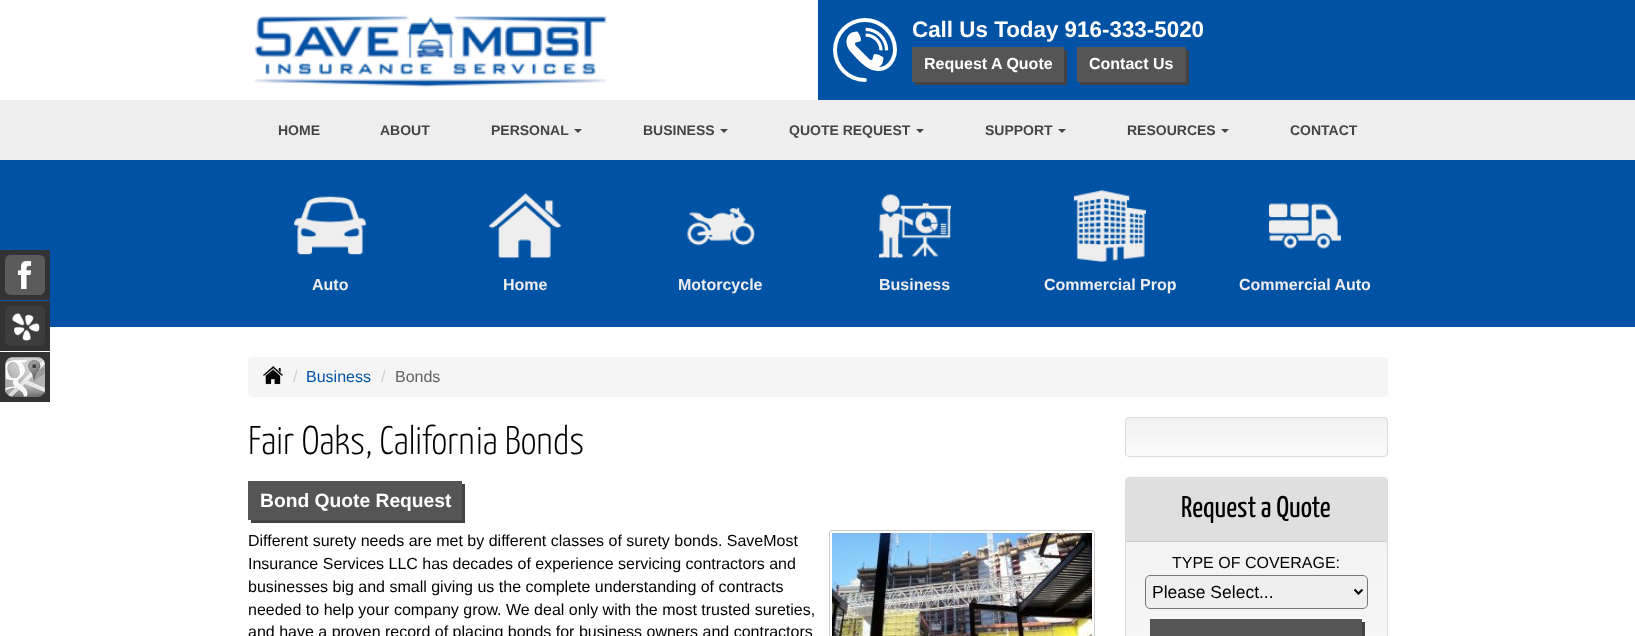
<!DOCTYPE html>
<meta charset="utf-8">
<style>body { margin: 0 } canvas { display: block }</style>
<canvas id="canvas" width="1635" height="636"></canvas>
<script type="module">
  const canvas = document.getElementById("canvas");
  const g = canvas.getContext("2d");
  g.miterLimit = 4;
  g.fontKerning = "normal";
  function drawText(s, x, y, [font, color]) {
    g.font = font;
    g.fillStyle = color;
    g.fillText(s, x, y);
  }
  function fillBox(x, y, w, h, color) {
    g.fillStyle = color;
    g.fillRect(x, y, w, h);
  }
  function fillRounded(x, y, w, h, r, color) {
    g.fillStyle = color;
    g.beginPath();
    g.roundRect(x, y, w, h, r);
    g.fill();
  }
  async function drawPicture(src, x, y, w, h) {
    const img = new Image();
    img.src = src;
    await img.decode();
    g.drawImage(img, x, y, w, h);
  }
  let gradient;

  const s1 = ["bold 22.4px Liberation Sans", "#FFFFFF"];
  const s2 = ["bold 16px Liberation Sans", "#FFFFFF"];
  const s3 = ["bold 14px Liberation Sans", "#444444"];
  const s4 = ["bold 16px Liberation Sans", "#EEEEEE"];
  const s5 = ["16px Liberation Sans", "#CCCCCC"];
  const s6 = ["16px Liberation Sans", "#0053A4"];
  const s7 = ["16px Liberation Sans", "#636363"];
  const s8 = ["300 40px Yanone Kaffeesatz", "#000000"];
  const s9 = ["bold 19.25px Liberation Sans", "#FFFFFF"];
  const s10 = ["16px Liberation Sans", "#000000"];
  const s11 = ["30px Yanone Kaffeesatz", "#000000"];
  const s12 = ["17.5px Liberation Sans", "#000000"];

  fillBox(0, 0, 1635, 636, "#FFFFFF");
  fillBox(818, 0, 817, 100, "#0053A4");
  await drawPicture("pic1.png", 254, 15, 354, 73);
  await drawPicture("pic2.png", 833, 18, 64, 64);
  drawText("Call Us Today 916-333-5020", 912, 37, s1);
  g.fillStyle = "#434343";
  g.beginPath();
  g.moveTo(915, 82);
  g.lineTo(915, 85);
  g.lineTo(1067, 85);
  g.lineTo(1067, 50);
  g.lineTo(1064, 50);
  g.lineTo(1064, 82);
  g.closePath();
  g.fill();
  fillBox(912, 47, 152, 35, "#555555");
  drawText("Request A Quote", 924, 69, s2);
  g.fillStyle = "#434343";
  g.beginPath();
  g.moveTo(1080, 82);
  g.lineTo(1080, 85);
  g.lineTo(1189, 85);
  g.lineTo(1189, 50);
  g.lineTo(1186, 50);
  g.lineTo(1186, 82);
  g.closePath();
  g.fill();
  fillBox(1077, 47, 109, 35, "#555555");
  drawText("Contact Us", 1089, 69, s2);
  fillBox(0, 100, 1635, 60, "#EEEEEE");
  drawText("HOME", 278, 135, s3);
  drawText("ABOUT", 380, 135, s3);
  drawText("PERSONAL", 491, 135, s3);
  g.beginPath();
  g.moveTo(574, 129);
  g.lineTo(582, 129);
  g.lineTo(578, 133);
  g.closePath();
  g.fill();
  drawText("BUSINESS", 643, 135, s3);
  g.beginPath();
  g.moveTo(720, 129);
  g.lineTo(728, 129);
  g.lineTo(724, 133);
  g.closePath();
  g.fill();
  drawText("QUOTE REQUEST", 789, 135, s3);
  g.beginPath();
  g.moveTo(916, 129);
  g.lineTo(924, 129);
  g.lineTo(920, 133);
  g.closePath();
  g.fill();
  drawText("SUPPORT", 985, 135, s3);
  g.beginPath();
  g.moveTo(1058, 129);
  g.lineTo(1066, 129);
  g.lineTo(1062, 133);
  g.closePath();
  g.fill();
  drawText("RESOURCES", 1127, 135, s3);
  g.beginPath();
  g.moveTo(1221, 129);
  g.lineTo(1229, 129);
  g.lineTo(1225, 133);
  g.closePath();
  g.fill();
  drawText("CONTACT", 1290, 135, s3);
  fillBox(0, 160, 1635, 167, "#0053A4");
  fillBox(0, 250, 50, 50, "#333333");
  await drawPicture("pic3.png", 5, 255, 40, 40);
  fillBox(0, 301, 50, 50, "#333333");
  await drawPicture("pic4.png", 5, 306, 40, 40);
  fillBox(0, 352, 50, 50, "#333333");
  await drawPicture("pic5.png", 5, 357, 40, 40);
  await drawPicture("pic6.png", 294, 196, 72, 59);
  drawText("Auto", 312, 290, s4);
  await drawPicture("pic7.png", 489, 193, 72, 65);
  drawText("Home", 503, 290, s4);
  await drawPicture("pic8.png", 687, 207, 68, 39);
  drawText("Motorcycle", 678, 290, s4);
  await drawPicture("pic9.png", 879, 194, 72, 64);
  drawText("Business", 879, 290, s4);
  await drawPicture("pic10.png", 1074, 190, 72, 72);
  drawText("Commercial Prop", 1044, 290, s4);
  await drawPicture("pic11.png", 1269, 203, 72, 46);
  drawText("Commercial Auto", 1239, 290, s4);
  fillRounded(248, 357, 1140, 40, 4, "#F5F5F5");
  await drawPicture("pic12.png", 263, 366, 20, 19);
  drawText("/", 293, 382, s5);
  drawText("Business", 306, 382, s6);
  drawText("/", 381, 382, s5);
  drawText("Bonds", 395, 382, s7);
  drawText("Fair Oaks, California Bonds", 248, 454, s8);
  g.fillStyle = "#434343";
  g.beginPath();
  g.moveTo(251, 520);
  g.lineTo(251, 523);
  g.lineTo(465, 523);
  g.lineTo(465, 484);
  g.lineTo(462, 484);
  g.lineTo(462, 520);
  g.closePath();
  g.fill();
  fillBox(248, 481, 214, 39, "#555555");
  drawText("Bond Quote Request", 260, 507, s9);
  drawText("Different surety needs are met by different classes of surety bonds. SaveMost", 248, 546, s10);
  drawText("Insurance Services LLC has decades of experience servicing contractors and", 248, 569, s10);
  drawText("businesses big and small giving us the complete understanding of contracts", 248, 592, s10);
  drawText("needed to help your company grow. We deal only with the most trusted sureties,", 248, 615, s10);
  drawText("and have a proven record of placing bonds for business owners and contractors", 248, 637, s10);
  g.beginPath();
  g.roundRect(829.5, 530.5, 265, 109, 2.5);
  g.strokeStyle = "#CCCCCC";
  g.stroke();
  await drawPicture("pic13.png", 832, 533, 260, 103);
  g.save();
  g.beginPath();
  g.roundRect(1125, 417, 263, 40, 4);
  g.clip();
  gradient = g.createLinearGradient(1257, 418, 1257, 456);
  gradient.addColorStop(0, "#F1F1F1");
  gradient.addColorStop(1, "#FBFBFB");
  g.fillStyle = gradient;
  g.fillRect(1125, 418, 263, 38);
  g.restore();
  g.beginPath();
  g.roundRect(1125.5, 417.5, 262, 39, 3.5);
  g.strokeStyle = "#DCDCDC";
  g.stroke();
  g.save();
  g.beginPath();
  g.roundRect(1125, 477, 263, 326, 4);
  g.clip();
  gradient = g.createLinearGradient(1257, 478, 1257, 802);
  gradient.addColorStop(0, "#F1F1F1");
  gradient.addColorStop(1, "#FBFBFB");
  g.fillStyle = gradient;
  g.fillRect(1125, 478, 263, 158);
  g.restore();
  g.beginPath();
  g.roundRect(1125.5, 477.5, 262, 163, 3.5);
  g.stroke();
  fillBox(1126, 478, 261, 63, "#DFDFDF");
  fillBox(1126, 541, 261, 1, "#CCCCCC");
  drawText("Request a Quote", 1181, 517, s11);
  drawText("TYPE OF COVERAGE:", 1172, 568, s10);
  g.fillStyle = "#EFEFEF";
  g.beginPath();
  g.roundRect(1145.5, 575.5, 222, 33, 4.5);
  g.fill();
  g.strokeStyle = "#767676";
  g.stroke();
  g.beginPath();
  g.moveTo(1354.5, 589.5);
  g.lineTo(1358.5, 593.5);
  g.lineTo(1362.5, 589.5);
  g.strokeStyle = "#000000";
  g.lineWidth = 2;
  g.stroke();
  drawText("Please Select...", 1152, 598, s12);
  g.fillStyle = "#434343";
  g.beginPath();
  g.moveTo(1153, 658);
  g.lineTo(1153, 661);
  g.lineTo(1365, 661);
  g.lineTo(1365, 622);
  g.lineTo(1362, 622);
  g.lineTo(1362, 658);
  g.closePath();
  g.fill();
  fillBox(1150, 619, 212, 17, "#555555");
</script>
